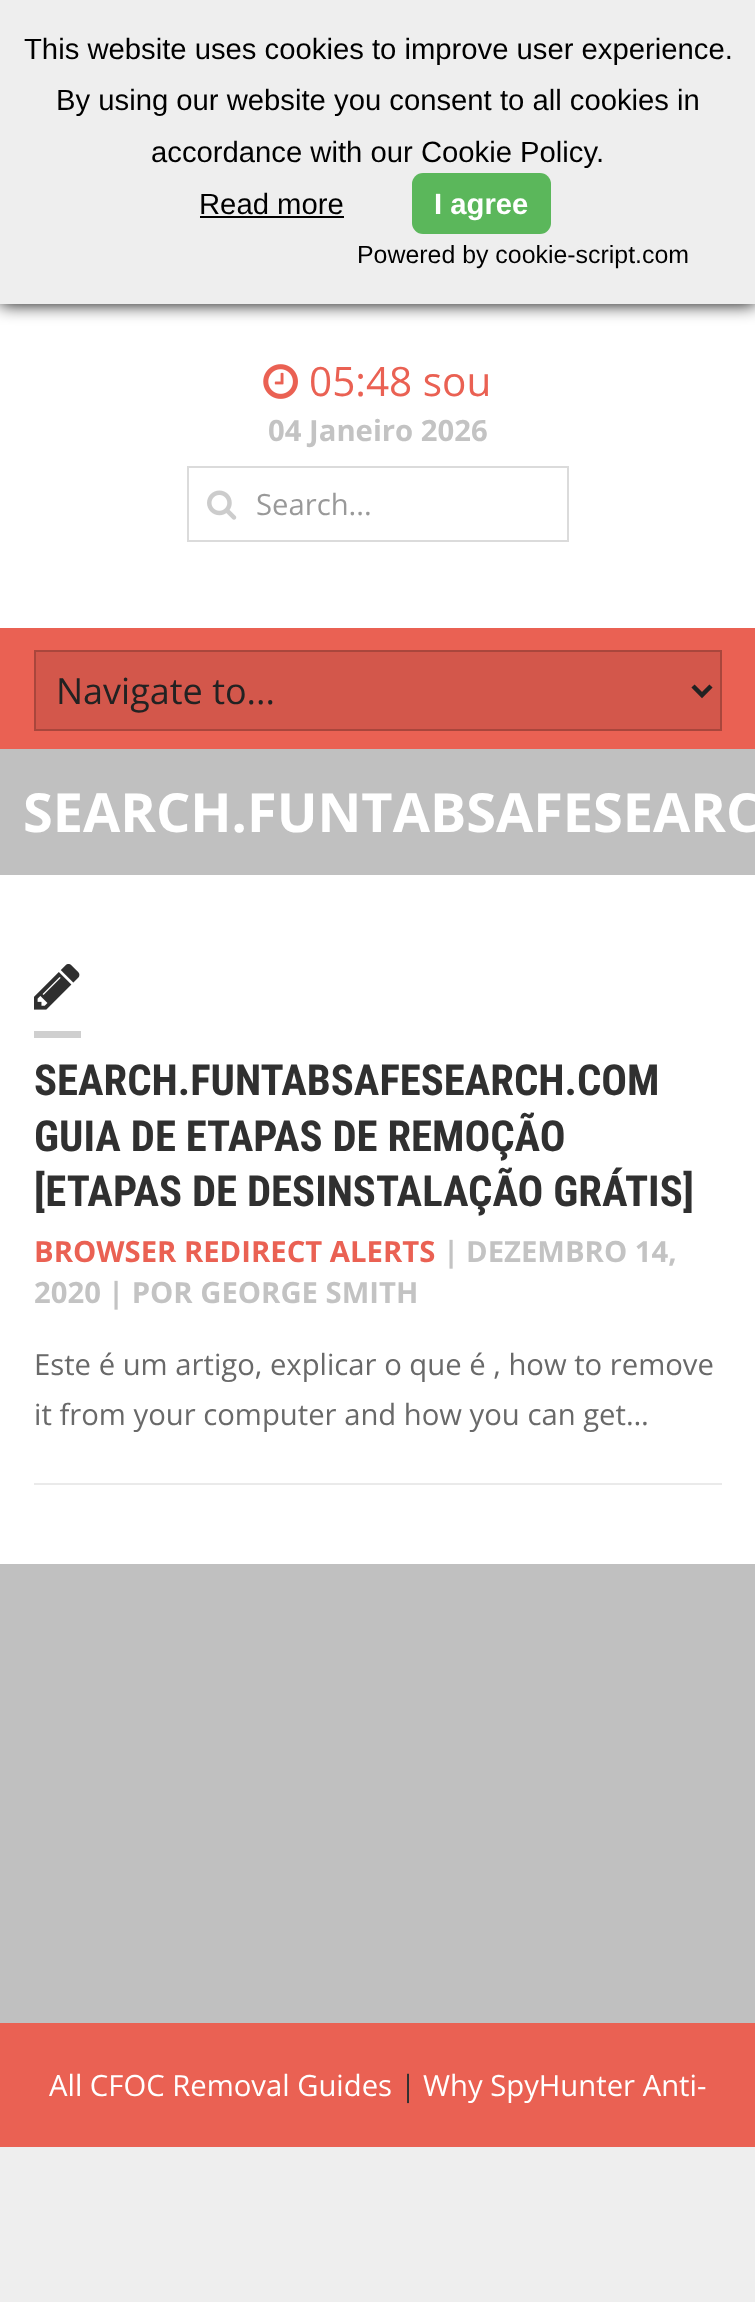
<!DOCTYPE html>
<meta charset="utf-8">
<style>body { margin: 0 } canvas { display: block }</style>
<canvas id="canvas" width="755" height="2302"></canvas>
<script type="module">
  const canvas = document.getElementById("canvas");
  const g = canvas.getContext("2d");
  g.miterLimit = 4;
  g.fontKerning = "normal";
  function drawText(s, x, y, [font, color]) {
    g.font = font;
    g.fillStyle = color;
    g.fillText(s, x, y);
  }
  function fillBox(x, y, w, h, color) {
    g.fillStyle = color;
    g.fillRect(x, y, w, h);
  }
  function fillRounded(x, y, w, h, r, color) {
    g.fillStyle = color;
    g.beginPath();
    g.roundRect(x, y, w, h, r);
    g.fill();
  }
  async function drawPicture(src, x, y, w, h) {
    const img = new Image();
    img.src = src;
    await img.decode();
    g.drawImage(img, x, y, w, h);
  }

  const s1 = ["29.25px Liberation Sans", "#000000"];
  const s2 = ["bold 29.25px Liberation Sans", "#FFFFFF"];
  const s3 = ["24.9px Liberation Sans", "#000000"];
  const s4 = ["40.5px Open Sans", "#EA6153"];
  const s5 = ["bold 29.25px Open Sans", "#C3C3C3"];
  const s6 = ["29.25px Open Sans", "#999999"];
  const s7 = ["36px Open Sans", "#222222"];
  const s8 = ["bold 54px Open Sans", "#FFFFFF"];
  const s9 = ["bold 42.75px Roboto Condensed", "#303030"];
  const s10 = ["bold 29.25px Open Sans", "#EA6153"];
  const s11 = ["29.25px Open Sans", "#696969"];
  const s12 = ["29.25px Open Sans", "#FFFFFF"];
  const s13 = ["29.25px Open Sans", "#303030"];

  fillBox(0, 0, 755, 2302, "#EEEEEE");
  fillBox(0, 304, 755, 1260, "#FFFFFF");
  g.fillStyle = "#000000";
  g.filter = "blur(9px)";
  g.beginPath();
  g.rect(0, 0, 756, 304);
  g.fill();
  g.filter = "none";
  fillBox(0, 0, 755, 304, "#EEEEEE");
  drawText("This website uses cookies to improve user experience.", 24, 59, s1);
  drawText("By using our website you consent to all cookies in", 56, 110, s1);
  drawText("accordance with our Cookie Policy.", 151, 162, s1);
  drawText("Read more", 199, 214, s1);
  fillBox(200, 216, 144, 2, "#000000");
  fillRounded(412, 173, 139, 61, 11, "#5BB75B");
  drawText("I agree", 434, 214, s2);
  drawText("Powered by cookie-script.com", 357, 263, s3);
  await drawPicture("pic1.png", 263, 364, 35, 35);
  drawText("05:48 sou", 309, 396, s4);
  drawText("04 Janeiro 2026", 268, 441, s5);
  g.strokeStyle = "#DBDBDB";
  g.lineWidth = 2;
  g.strokeRect(188, 467, 380, 74);
  await drawPicture("pic2.png", 207, 490, 30, 30);
  drawText("Search...", 256, 515, s6);
  fillBox(0, 628, 755, 121, "#EA6153");
  g.fillStyle = "#D3574B";
  g.beginPath();
  g.rect(35, 651, 686, 79);
  g.fill();
  g.strokeStyle = "#A9463C";
  g.stroke();
  g.beginPath();
  g.moveTo(693, 686);
  g.lineTo(702, 695);
  g.lineTo(711, 686);
  g.strokeStyle = "#222222";
  g.lineWidth = 4.5;
  g.stroke();
  drawText("Navigate to...", 56, 704, s7);
  fillBox(0, 749, 755, 126, "#C0C0C0");
  drawText("SEARCH.FUNTABSAFESEARC", 23, 832, s8);
  fillBox(34, 1483, 688, 2, "#EAEAEA");
  fillBox(34, 1031, 47, 7, "#CFCFCF");
  await drawPicture("pic3.png", 34, 964, 46, 46);
  drawText("SEARCH.FUNTABSAFESEARCH.COM", 34, 1095, s9);
  drawText("GUIA DE ETAPAS DE REMOÇÃO", 34, 1151, s9);
  drawText("[ETAPAS DE DESINSTALAÇÃO GRÁTIS]", 34, 1206, s9);
  drawText("BROWSER REDIRECT ALERTS", 34, 1262, s10);
  drawText("|", 443, 1262, s5);
  drawText("DEZEMBRO 14,", 466, 1262, s5);
  drawText("2020", 34, 1303, s5);
  drawText("| POR GEORGE SMITH", 108, 1303, s5);
  drawText("Este é um artigo, explicar o que é , how to remove", 34, 1375, s11);
  drawText("it from your computer and how you can get…", 34, 1425, s11);
  fillBox(0, 1564, 755, 459, "#C0C0C0");
  fillBox(0, 2023, 755, 124, "#EA6153");
  drawText("All CFOC Removal Guides", 49, 2096, s12);
  drawText("|", 400, 2096, s13);
  drawText("Why SpyHunter Anti-", 423, 2096, s12);
</script>
